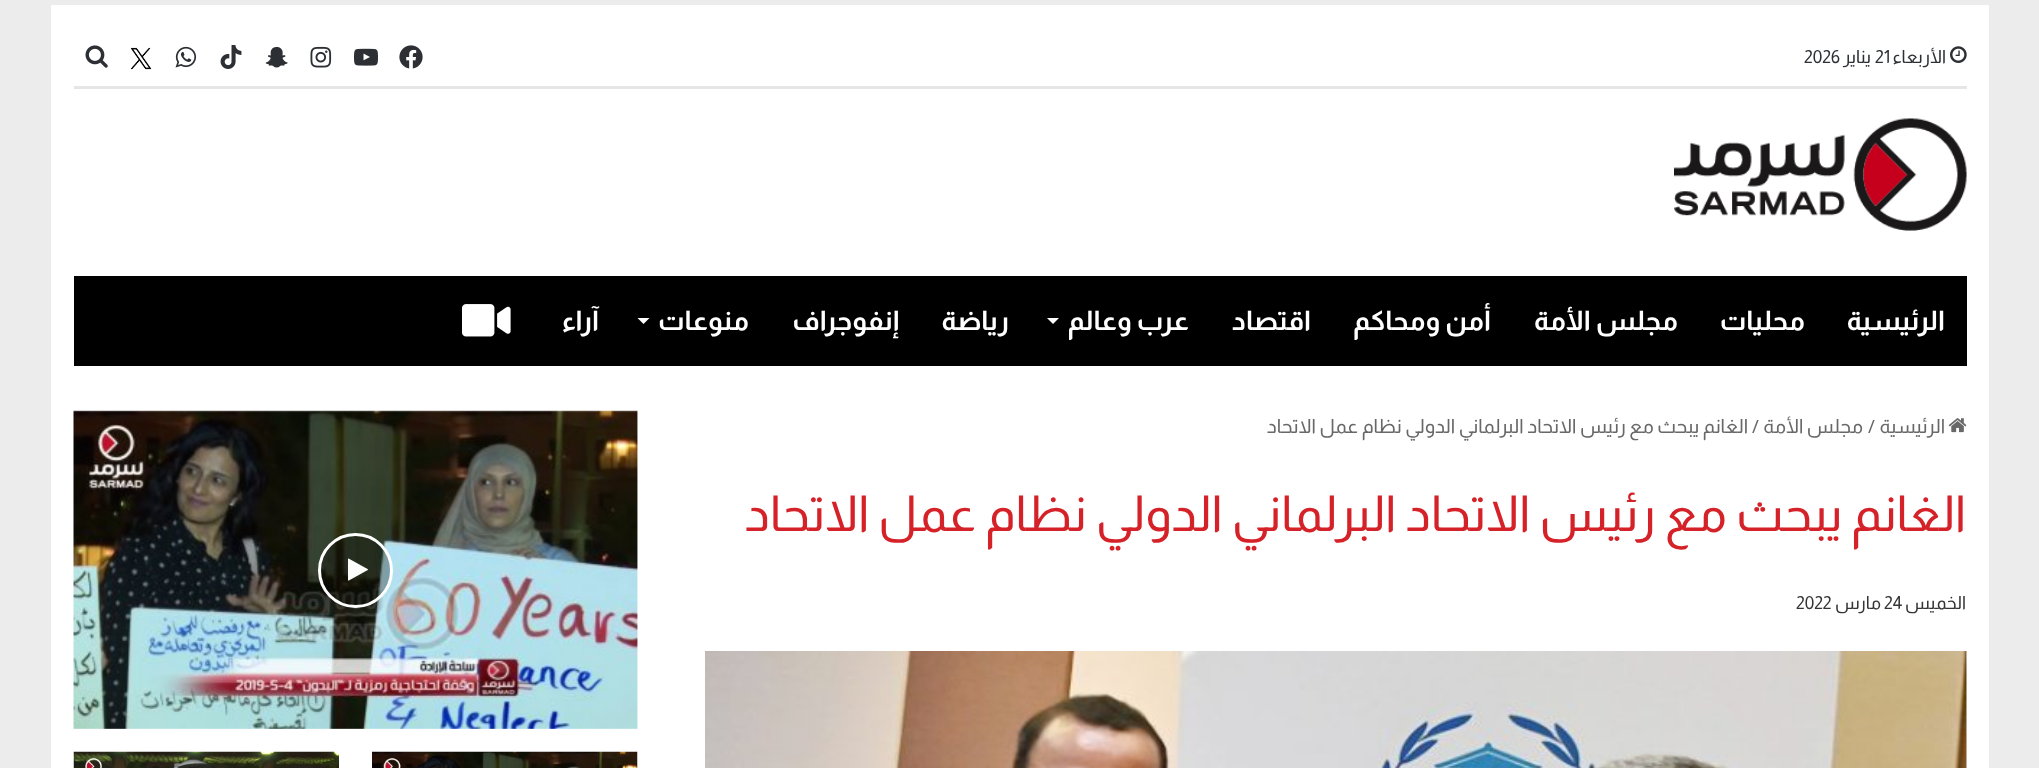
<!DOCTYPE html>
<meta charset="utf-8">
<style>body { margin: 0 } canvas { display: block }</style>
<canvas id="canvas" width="2039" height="768"></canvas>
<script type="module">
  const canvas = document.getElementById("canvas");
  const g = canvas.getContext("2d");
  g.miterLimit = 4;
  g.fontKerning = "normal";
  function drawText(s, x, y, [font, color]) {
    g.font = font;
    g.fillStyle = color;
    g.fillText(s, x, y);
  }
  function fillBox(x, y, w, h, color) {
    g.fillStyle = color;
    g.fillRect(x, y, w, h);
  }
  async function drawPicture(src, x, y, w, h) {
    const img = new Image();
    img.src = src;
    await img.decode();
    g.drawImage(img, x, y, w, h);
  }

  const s1 = ["18px Almarai", "#2C2F34"];
  const s2 = ["bold 27px Almarai", "#FFFFFF"];
  const s3 = ["19.5px Almarai", "#686868"];
  const s4 = ["49.5px Almarai", "#D52229"];
  const s5 = ["18px Almarai", "#353535"];

  fillBox(0, 0, 2039, 768, "#ECECEC");
  fillBox(51, 5, 1938, 763, "#FFFFFF");
  fillBox(74, 86, 1893, 3, "#E6E6E6");
  await drawPicture("pic1.png", 1950, 46, 17, 17);
  g.direction = "rtl";
  drawText("الأربعاء", 1946, 63, s1);
  g.direction = "ltr";
  drawText("21", 1875, 63, s1);
  g.direction = "rtl";
  drawText("يناير", 1871, 63, s1);
  g.direction = "ltr";
  drawText("2026", 1804, 63, s1);
  await drawPicture("pic2.png", 399, 45, 24, 24);
  await drawPicture("pic3.png", 354, 48, 24, 18);
  await drawPicture("pic4.png", 310, 46, 22, 22);
  await drawPicture("pic5.png", 265, 46, 23, 22);
  await drawPicture("pic6.png", 220, 45, 22, 24);
  await drawPicture("pic7.png", 175, 46, 22, 22);
  await drawPicture("pic8.png", 131, 47, 21, 23);
  await drawPicture("pic9.png", 85, 45, 23, 23);
  await drawPicture("pic10.png", 1674, 118, 293, 113);
  fillBox(74, 276, 1893, 90, "#000000");
  g.direction = "rtl";
  drawText("الرئيسية", 1945, 330, s2);
  drawText("محليات", 1805, 330, s2);
  drawText("مجلس الأمة", 1678, 330, s2);
  drawText("أمن ومحاكم", 1491, 330, s2);
  drawText("اقتصاد", 1311, 330, s2);
  drawText("عرب وعالم", 1189, 330, s2);
  g.beginPath();
  g.moveTo(1047, 318);
  g.lineTo(1059, 318);
  g.lineTo(1053, 324);
  g.closePath();
  g.fill();
  drawText("رياضة", 1009, 330, s2);
  drawText("إنفوجراف", 899, 330, s2);
  drawText("منوعات", 749, 330, s2);
  g.beginPath();
  g.moveTo(637.5, 318);
  g.lineTo(649.5, 318);
  g.lineTo(643.5, 324);
  g.closePath();
  g.fill();
  drawText("آراء", 599, 330, s2);
  await drawPicture("pic11.png", 462, 304, 49, 33);
  await drawPicture("pic12.png", 1948, 418, 19, 15);
  drawText("الرئيسية", 1945, 433, s3);
  g.direction = "ltr";
  drawText("/", 1868, 433, s3);
  g.direction = "rtl";
  drawText("مجلس الأمة", 1863, 433, s3);
  g.direction = "ltr";
  drawText("/", 1752, 433, s3);
  g.direction = "rtl";
  drawText("الغانم يبحث مع رئيس الاتحاد البرلماني الدولي نظام عمل الاتحاد", 1748, 433, s3);
  drawText("الغانم يبحث مع رئيس الاتحاد البرلماني الدولي نظام عمل الاتحاد", 1966, 531, s4);
  drawText("الخميس", 1966, 609, s5);
  g.direction = "ltr";
  drawText("24", 1884, 609, s5);
  g.direction = "rtl";
  drawText("مارس", 1881, 609, s5);
  g.direction = "ltr";
  drawText("2022", 1796, 609, s5);
  await drawPicture("pic13.png", 705, 651, 1262, 117);
  await drawPicture("pic14.png", 73, 410, 565, 319);
  g.fillStyle = "rgba(3, 3, 3, 0.3)";
  g.beginPath();
  g.arc(355.5, 570.5, 36, 0, Math.PI * 2);
  g.fill();
  g.strokeStyle = "#FFFFFF";
  g.lineWidth = 3;
  g.stroke();
  await drawPicture("pic15.png", 348, 558, 20, 23);
  await drawPicture("pic16.png", 372, 751, 266, 17);
  await drawPicture("pic17.png", 73, 751, 266, 17);
</script>
